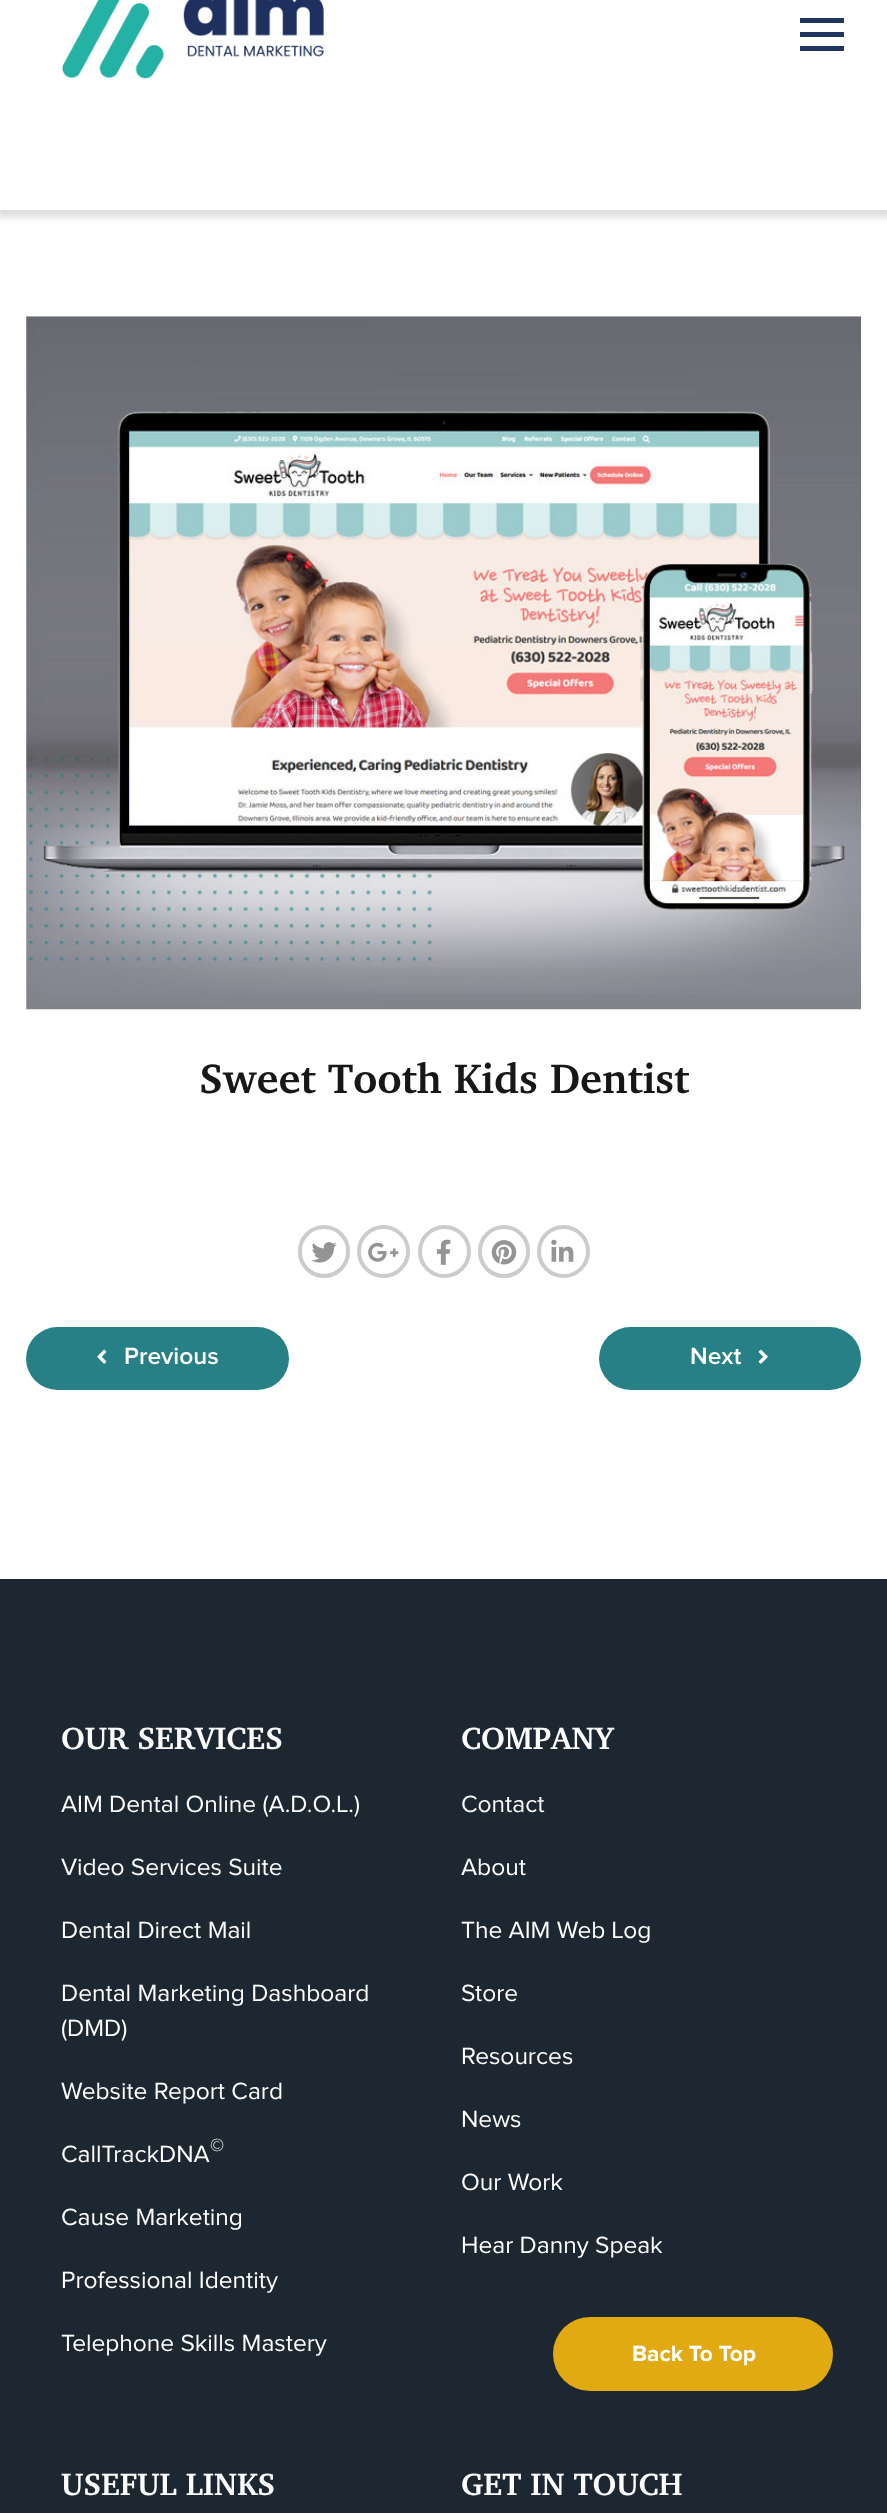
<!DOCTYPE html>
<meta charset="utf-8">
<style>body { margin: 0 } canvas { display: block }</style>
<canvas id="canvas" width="887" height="2513"></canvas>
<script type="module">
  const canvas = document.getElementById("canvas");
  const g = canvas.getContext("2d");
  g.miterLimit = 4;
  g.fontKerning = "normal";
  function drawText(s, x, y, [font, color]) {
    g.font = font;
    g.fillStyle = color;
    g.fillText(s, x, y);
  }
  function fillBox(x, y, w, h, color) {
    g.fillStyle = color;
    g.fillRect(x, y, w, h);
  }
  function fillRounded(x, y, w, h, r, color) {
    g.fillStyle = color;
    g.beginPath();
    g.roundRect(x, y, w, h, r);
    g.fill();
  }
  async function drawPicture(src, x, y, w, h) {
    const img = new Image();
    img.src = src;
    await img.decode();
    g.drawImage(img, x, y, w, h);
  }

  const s1 = ["bold 42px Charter", "#171717"];
  const s2 = ["600 24.5px Proxima Nova", "#FFFFFF"];
  const s3 = ["bold 31.5px Charter", "#FFFFFF"];
  const s4 = ["24.5px Proxima Nova", "#FFFFFF"];
  const s5 = ["18px Proxima Nova", "#FFFFFF"];
  const s6 = ["bold 22.75px Proxima Nova", "#FFFFFF"];

  fillBox(0, 0, 887, 2513, "#FFFFFF");
  g.save();
  g.beginPath();
  g.rect(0, 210, 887, 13);
  g.clip();
  g.fillStyle = "rgba(187, 187, 187, 0.5)";
  g.filter = "blur(3.5px)";
  g.beginPath();
  g.rect(-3, -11, 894, 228);
  g.fill();
  g.filter = "none";
  g.restore();
  await drawPicture("pic1.png", 62, 0, 262, 79);
  fillBox(800, 32, 44, 5, "#1F345E");
  fillBox(800, 18, 44, 5, "#1F345E");
  fillBox(800, 46, 44, 5, "#1F345E");
  await drawPicture("pic2.png", 26, 316, 835, 694);
  drawText("Sweet Tooth Kids Dentist", 199, 1093, s1);
  g.beginPath();
  g.roundRect(300, 1227, 48, 49, 24);
  g.strokeStyle = "#CCCCCC";
  g.lineWidth = 4;
  g.stroke();
  await drawPicture("pic3.png", 311, 1242, 26, 21);
  g.beginPath();
  g.arc(383.5, 1251.5, 24.5, 0, Math.PI * 2);
  g.stroke();
  await drawPicture("pic4.png", 368, 1242, 31, 20);
  g.beginPath();
  g.arc(444.5, 1251.5, 24.5, 0, Math.PI * 2);
  g.stroke();
  await drawPicture("pic5.png", 436, 1239, 15, 26);
  g.beginPath();
  g.roundRect(480, 1227, 48, 49, 24);
  g.stroke();
  await drawPicture("pic6.png", 491, 1240, 26, 25);
  g.beginPath();
  g.arc(563.5, 1251.5, 24.5, 0, Math.PI * 2);
  g.stroke();
  await drawPicture("pic7.png", 551, 1239, 23, 23);
  fillRounded(26, 1327, 263, 63, 31.5, "#278086");
  await drawPicture("pic8.png", 97, 1349, 10, 15);
  drawText("Previous", 124, 1364, s2);
  fillRounded(599, 1327, 262, 63, 31.5, "#278086");
  drawText("Next", 690, 1364, s2);
  await drawPicture("pic9.png", 758, 1349, 10, 15);
  fillBox(0, 1579, 887, 934, "#1D2731");
  drawText("OUR SERVICES", 61, 1749, s3);
  drawText("AIM Dental Online (A.D.O.L.)", 61, 1812, s4);
  drawText("Video Services Suite", 61, 1875, s4);
  drawText("Dental Direct Mail", 61, 1938, s4);
  drawText("Dental Marketing Dashboard", 61, 2001, s4);
  drawText("(DMD)", 61, 2036, s4);
  drawText("Website Report Card", 61, 2099, s4);
  drawText("CallTrackDNA", 61, 2162, s4);
  drawText("©", 210, 2151, s5);
  drawText("Cause Marketing", 61, 2225, s4);
  drawText("Professional Identity", 61, 2288, s4);
  drawText("Telephone Skills Mastery", 61, 2351, s4);
  drawText("COMPANY", 461, 1749, s3);
  drawText("Contact", 461, 1812, s4);
  drawText("About", 461, 1875, s4);
  drawText("The AIM Web Log", 461, 1938, s4);
  drawText("Store", 461, 2001, s4);
  drawText("Resources", 461, 2064, s4);
  drawText("News", 461, 2127, s4);
  drawText("Our Work", 461, 2190, s4);
  drawText("Hear Danny Speak", 461, 2253, s4);
  drawText("USEFUL LINKS", 61, 2495, s3);
  drawText("GET IN TOUCH", 461, 2495, s3);
  fillRounded(553, 2317, 280, 74, 37, "#E1AA12");
  drawText("Back To Top", 632, 2361, s6);
</script>
